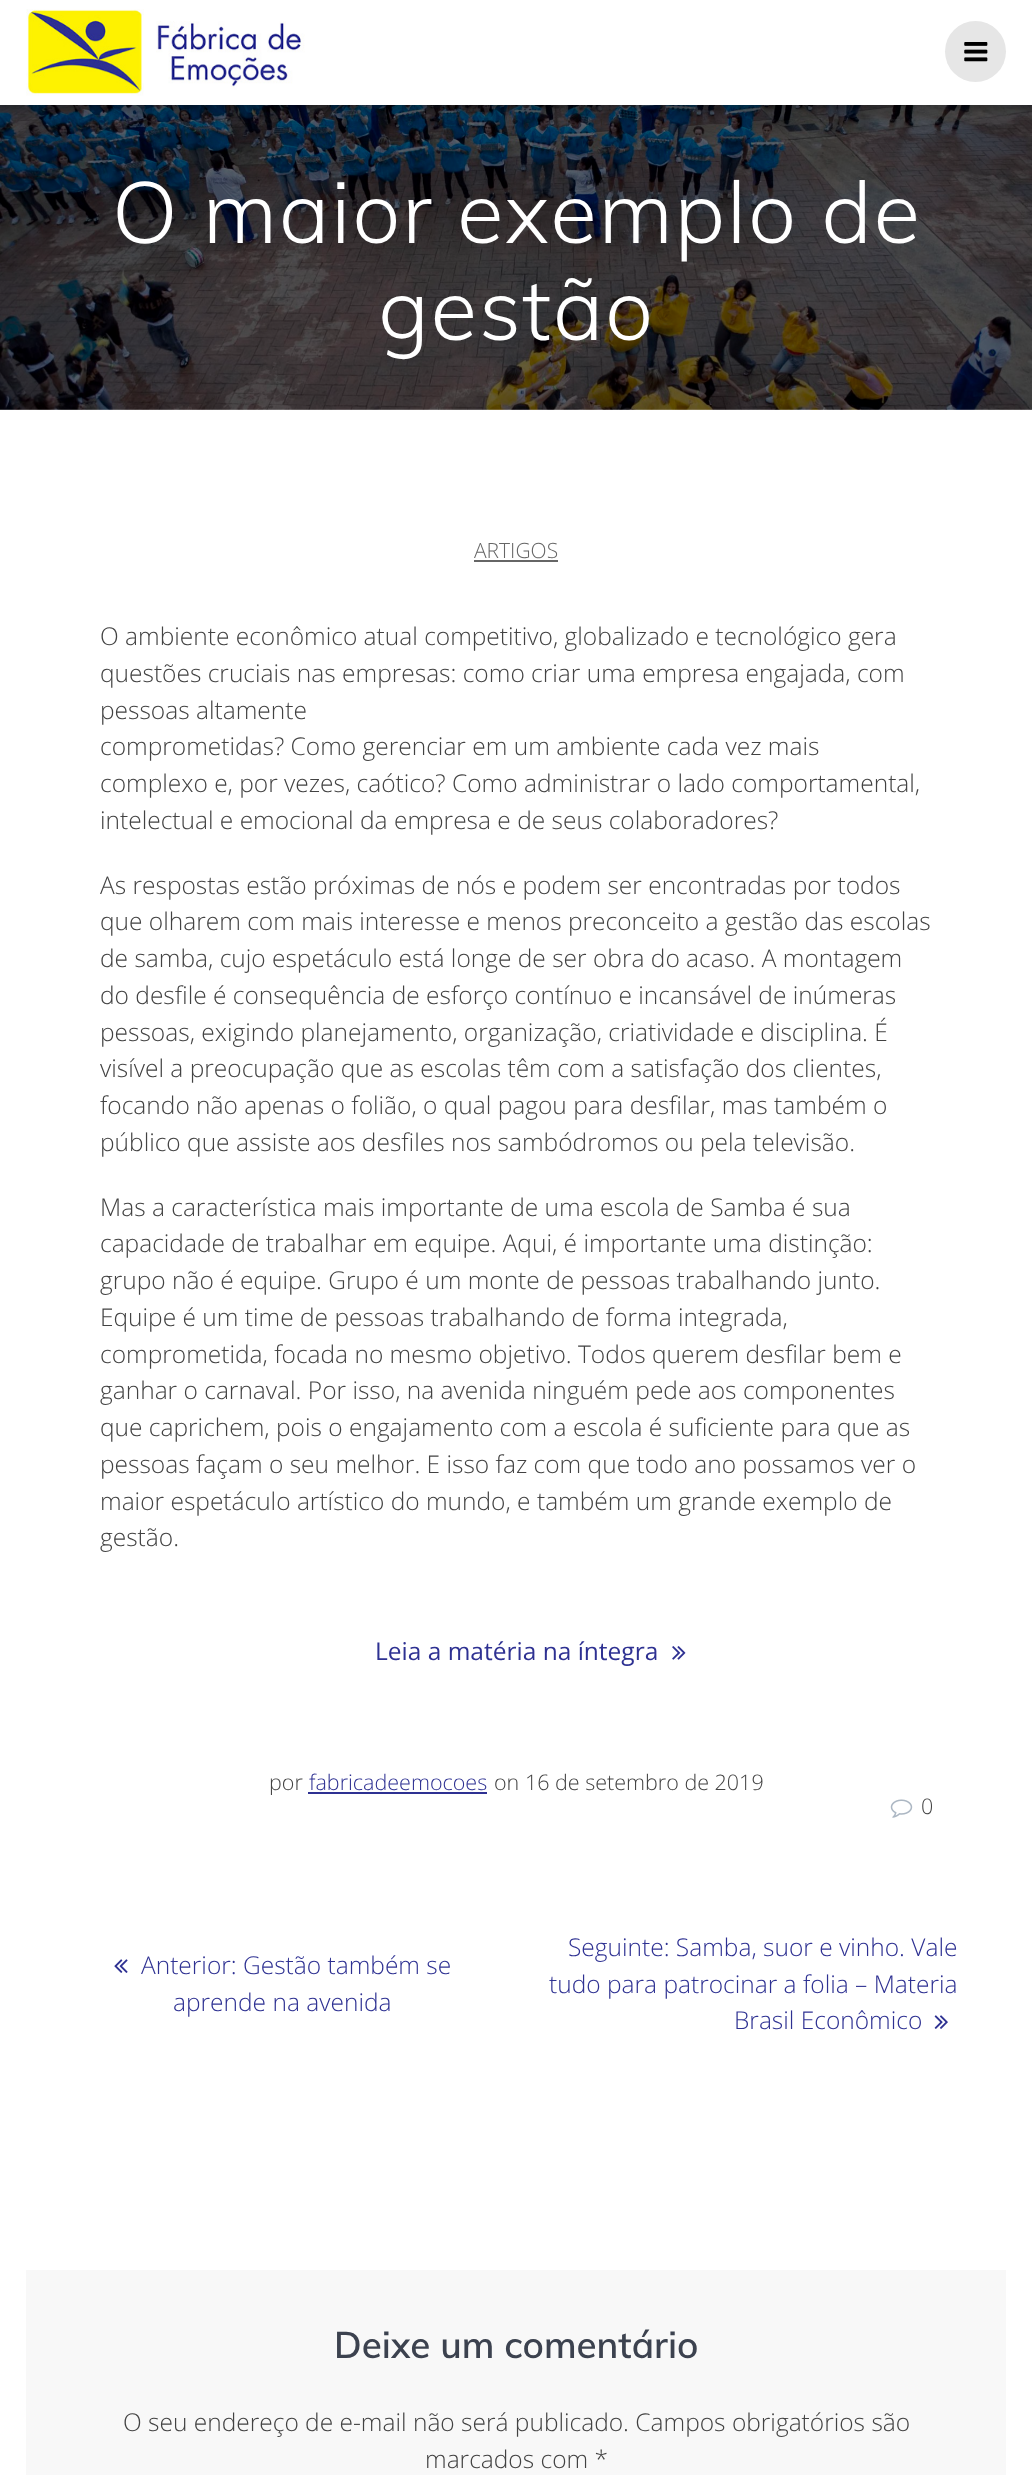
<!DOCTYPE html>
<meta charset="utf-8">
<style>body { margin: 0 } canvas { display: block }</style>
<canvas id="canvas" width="1032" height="2475"></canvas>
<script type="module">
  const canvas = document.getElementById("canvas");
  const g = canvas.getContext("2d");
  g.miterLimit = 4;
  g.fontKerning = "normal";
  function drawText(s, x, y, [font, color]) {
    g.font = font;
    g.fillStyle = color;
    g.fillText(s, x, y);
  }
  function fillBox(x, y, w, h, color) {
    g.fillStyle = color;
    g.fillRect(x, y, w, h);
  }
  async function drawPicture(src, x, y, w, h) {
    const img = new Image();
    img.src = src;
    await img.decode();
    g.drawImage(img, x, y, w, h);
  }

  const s1 = ["300 85.75px Muli", "#FFFFFF"];
  const s2 = ["300 21px Open Sans", "#666666"];
  const s3 = ["300 24.5px Open Sans", "#424242"];
  const s4 = ["24.5px Open Sans", "#2E3192"];
  const s5 = ["300 21.5px Open Sans", "#424242"];
  const s6 = ["300 21.5px Open Sans", "#2E3192"];
  const s7 = ["300 24.5px Open Sans", "#2E3192"];
  const s8 = ["600 36.75px Muli", "#3C424F"];

  fillBox(0, 0, 1032, 2475, "#FFFFFF");
  await drawPicture("pic3.png", 0, 105, 1032, 305);
  g.fillStyle = "rgba(0, 0, 0, 0.33)";
  g.filter = "blur(4.5px)";
  g.beginPath();
  g.rect(-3, -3, 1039, 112);
  g.fill();
  g.filter = "none";
  fillBox(0, 0, 1032, 105, "#FFFFFF");
  await drawPicture("pic1.png", 26, 9, 279, 87);
  g.fillStyle = "#E6E6E6";
  g.beginPath();
  g.arc(975.5, 51.5, 30.5, 0, Math.PI * 2);
  g.fill();
  await drawPicture("pic2.png", 964, 42, 24, 20);
  g.letterSpacing = "1.6px";
  drawText("O maior exemplo de", 112, 243, s1);
  drawText("gestão", 378, 340, s1);
  g.letterSpacing = "0px";
  drawText("ARTIGOS", 474, 558, s2);
  fillBox(474, 560, 84, 2, "#666666");
  drawText("O ambiente econômico atual competitivo, globalizado e tecnológico gera", 100, 645, s3);
  drawText("questões cruciais nas empresas: como criar uma empresa engajada, com", 100, 682, s3);
  drawText("pessoas altamente", 100, 719, s3);
  drawText("comprometidas? Como gerenciar em um ambiente cada vez mais", 100, 755, s3);
  drawText("complexo e, por vezes, caótico? Como administrar o lado comportamental,", 100, 792, s3);
  drawText("intelectual e emocional da empresa e de seus colaboradores?", 100, 829, s3);
  drawText("As respostas estão próximas de nós e podem ser encontradas por todos", 100, 894, s3);
  drawText("que olharem com mais interesse e menos preconceito a gestão das escolas", 100, 930, s3);
  drawText("de samba, cujo espetáculo está longe de ser obra do acaso. A montagem", 100, 967, s3);
  drawText("do desfile é consequência de esforço contínuo e incansável de inúmeras", 100, 1004, s3);
  drawText("pessoas, exigindo planejamento, organização, criatividade e disciplina. É", 100, 1041, s3);
  drawText("visível a preocupação que as escolas têm com a satisfação dos clientes,", 100, 1077, s3);
  drawText("focando não apenas o folião, o qual pagou para desfilar, mas também o", 100, 1114, s3);
  drawText("público que assiste aos desfiles nos sambódromos ou pela televisão.", 100, 1151, s3);
  drawText("Mas a característica mais importante de uma escola de Samba é sua", 100, 1216, s3);
  drawText("capacidade de trabalhar em equipe. Aqui, é importante uma distinção:", 100, 1252, s3);
  drawText("grupo não é equipe. Grupo é um monte de pessoas trabalhando junto.", 100, 1289, s3);
  drawText("Equipe é um time de pessoas trabalhando de forma integrada,", 100, 1326, s3);
  drawText("comprometida, focada no mesmo objetivo. Todos querem desfilar bem e", 100, 1363, s3);
  drawText("ganhar o carnaval. Por isso, na avenida ninguém pede aos componentes", 100, 1399, s3);
  drawText("que caprichem, pois o engajamento com a escola é suficiente para que as", 100, 1436, s3);
  drawText("pessoas façam o seu melhor. E isso faz com que todo ano possamos ver o", 100, 1473, s3);
  drawText("maior espetáculo artístico do mundo, e também um grande exemplo de", 100, 1510, s3);
  drawText("gestão.", 100, 1546, s3);
  drawText("Leia a matéria na íntegra", 375, 1660, s4);
  await drawPicture("pic4.png", 672, 1646, 14, 14);
  drawText("por", 269, 1790, s5);
  drawText("fabricadeemocoes", 309, 1790, s6);
  fillBox(308, 1792, 179, 2, "#2E3192");
  drawText("on 16 de setembro de 2019", 494, 1790, s5);
  await drawPicture("pic5.png", 890, 1799, 23, 19);
  drawText("0", 921, 1814, s5);
  await drawPicture("pic6.png", 114, 1959, 14, 14);
  drawText("Anterior: Gestão também se", 141, 1974, s7);
  drawText("aprende na avenida", 173, 2011, s7);
  drawText("Seguinte: Samba, suor e vinho. Vale", 568, 1956, s7);
  drawText("tudo para patrocinar a folia – Materia", 549, 1993, s7);
  drawText("Brasil Econômico", 734, 2029, s7);
  await drawPicture("pic7.png", 934, 2015, 14, 14);
  fillBox(26, 2270, 980, 205, "#F8F8F8");
  drawText("Deixe um comentário", 334, 2358, s8);
  drawText("O seu endereço de e-mail não será publicado. Campos obrigatórios são", 123, 2431, s3);
  drawText("marcados com *", 425, 2468, s3);
</script>
